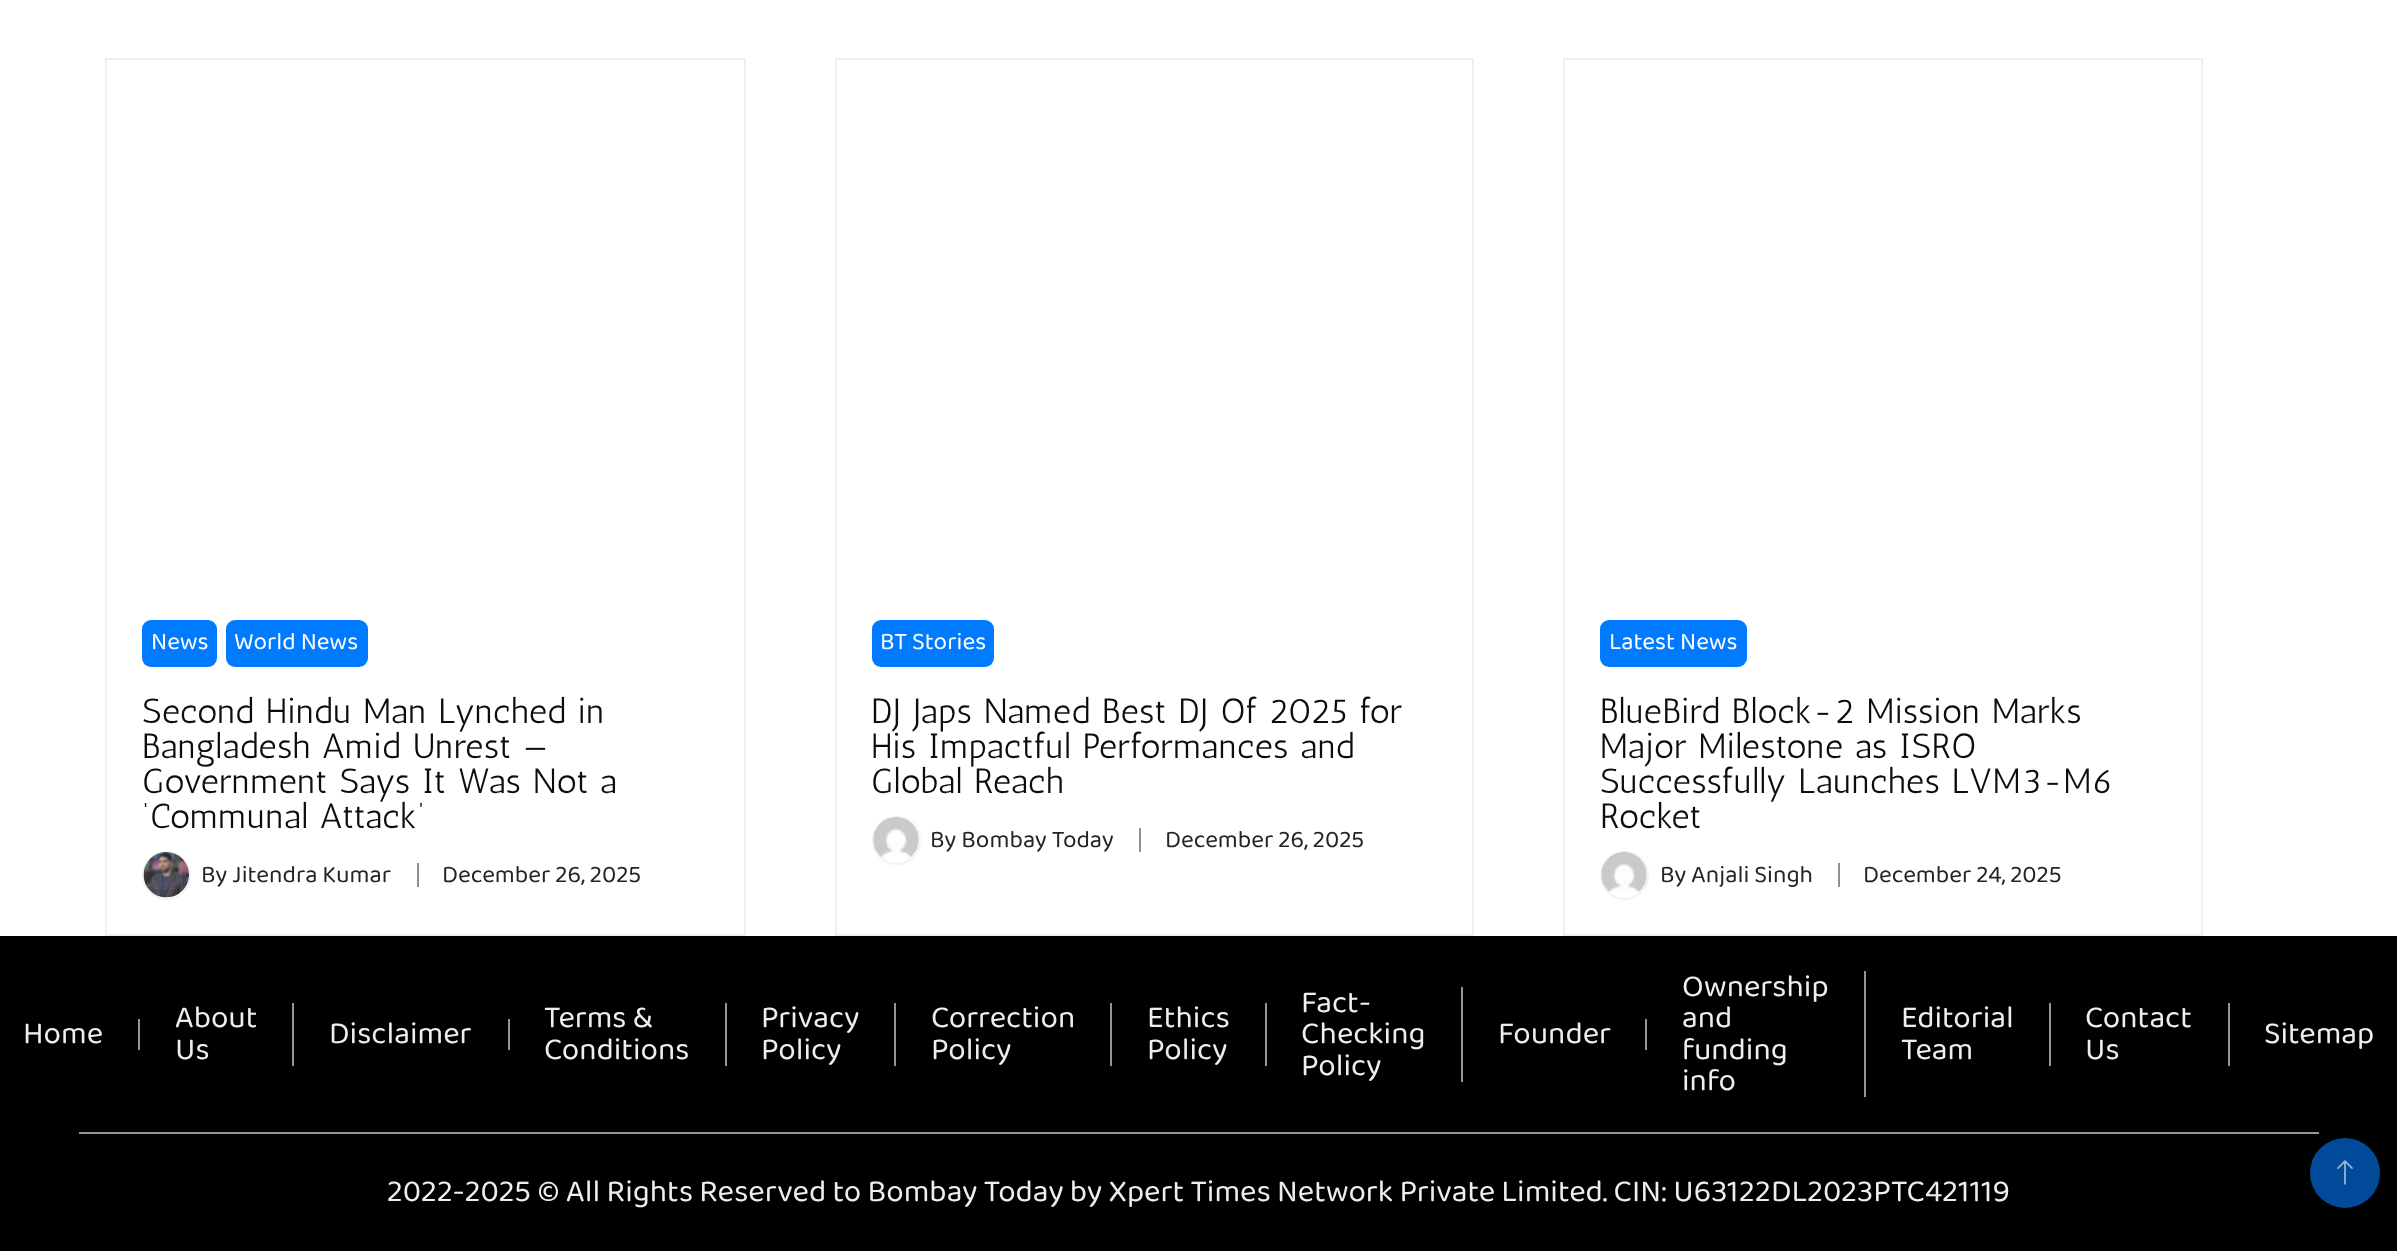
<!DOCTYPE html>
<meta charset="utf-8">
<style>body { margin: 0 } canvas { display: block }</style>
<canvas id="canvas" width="2397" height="1251"></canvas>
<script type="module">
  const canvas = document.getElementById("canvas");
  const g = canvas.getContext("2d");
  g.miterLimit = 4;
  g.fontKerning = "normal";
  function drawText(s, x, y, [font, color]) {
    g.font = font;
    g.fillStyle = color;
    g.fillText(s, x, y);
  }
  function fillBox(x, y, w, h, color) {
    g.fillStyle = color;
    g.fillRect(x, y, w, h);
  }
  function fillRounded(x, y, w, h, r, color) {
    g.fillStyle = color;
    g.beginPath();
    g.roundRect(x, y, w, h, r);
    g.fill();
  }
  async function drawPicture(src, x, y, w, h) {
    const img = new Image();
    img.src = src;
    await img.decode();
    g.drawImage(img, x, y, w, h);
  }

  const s1 = ["24.5px 'Baloo 2'", "#FFFFFF"];
  const s2 = ["35px Antic", "#0C0C0C"];
  const s3 = ["24.5px 'Baloo 2'", "#242424"];
  const s4 = ["31.5px 'Baloo 2'", "#EEEEEE"];

  fillBox(0, 0, 2397, 1251, "#FFFFFF");
  g.strokeStyle = "#EFEFEF";
  g.lineWidth = 2;
  g.strokeRect(106, 59, 639, 876);
  fillRounded(142, 620, 75, 47, 9, "#007BFF");
  drawText("News", 151, 649, s1);
  fillRounded(226, 620, 142, 47, 9, "#007BFF");
  drawText("World News", 234, 649, s1);
  g.letterSpacing = "0.9px";
  drawText("Second Hindu Man Lynched in", 142, 723, s2);
  drawText("Bangladesh Amid Unrest —", 142, 758, s2);
  drawText("Government Says It Was Not a", 142, 793, s2);
  drawText("‘Communal Attack’", 142, 828, s2);
  g.beginPath();
  g.arc(166.5, 875.5, 23.5, 0, Math.PI * 2);
  g.strokeStyle = "#F2F2F2";
  g.stroke();
  await drawPicture("pic1.png", 143, 852, 46, 46);
  fillBox(417, 863, 2, 24, "#8D8E90");
  g.letterSpacing = "0px";
  drawText("By Jitendra Kumar", 201, 882, s3);
  drawText("December 26, 2025", 442, 882, s3);
  g.strokeStyle = "#EFEFEF";
  g.strokeRect(836, 59, 637, 876);
  fillRounded(872, 620, 122, 47, 9, "#007BFF");
  drawText("BT Stories", 880, 649, s1);
  g.letterSpacing = "0.9px";
  drawText("DJ Japs Named Best DJ Of 2025 for", 871, 723, s2);
  drawText("His Impactful Performances and", 871, 758, s2);
  drawText("Global Reach", 871, 793, s2);
  g.beginPath();
  g.arc(896.5, 840.5, 23.5, 0, Math.PI * 2);
  g.strokeStyle = "#F2F2F2";
  g.stroke();
  await drawPicture("pic2.png", 873, 817, 46, 41);
  fillBox(1139, 828, 2, 24, "#8D8E90");
  g.letterSpacing = "0px";
  drawText("By Bombay Today", 930, 847, s3);
  drawText("December 26, 2025", 1165, 847, s3);
  g.strokeStyle = "#EFEFEF";
  g.strokeRect(1564, 59, 638, 876);
  fillRounded(1600, 620, 147, 47, 9, "#007BFF");
  drawText("Latest News", 1609, 649, s1);
  g.letterSpacing = "0.9px";
  drawText("BlueBird Block-2 Mission Marks", 1600, 723, s2);
  drawText("Major Milestone as ISRO", 1600, 758, s2);
  drawText("Successfully Launches LVM3-M6", 1600, 793, s2);
  drawText("Rocket", 1600, 828, s2);
  g.beginPath();
  g.arc(1624.5, 875.5, 23.5, 0, Math.PI * 2);
  g.strokeStyle = "#F2F2F2";
  g.stroke();
  await drawPicture("pic2.png", 1601, 852, 46, 41);
  fillBox(1838, 863, 2, 24, "#8D8E90");
  g.letterSpacing = "0px";
  drawText("By Anjali Singh", 1660, 882, s3);
  drawText("December 24, 2025", 1863, 882, s3);
  fillBox(0, 936, 2397, 315, "#000000");
  fillBox(138, 1019, 2, 31, "#929497");
  drawText("Home", 23, 1043, s4);
  fillBox(292, 1003, 2, 63, "#929497");
  drawText("About", 175, 1027, s4);
  drawText("Us", 175, 1059, s4);
  fillBox(508, 1019, 2, 31, "#929497");
  drawText("Disclaimer", 329, 1043, s4);
  fillBox(725, 1003, 2, 63, "#929497");
  drawText("Terms &", 544, 1027, s4);
  drawText("Conditions", 544, 1059, s4);
  fillBox(894, 1003, 2, 63, "#929497");
  drawText("Privacy", 761, 1027, s4);
  drawText("Policy", 761, 1059, s4);
  fillBox(1110, 1003, 2, 63, "#929497");
  drawText("Correction", 931, 1027, s4);
  drawText("Policy", 931, 1059, s4);
  fillBox(1265, 1003, 2, 63, "#929497");
  drawText("Ethics", 1147, 1027, s4);
  drawText("Policy", 1147, 1059, s4);
  fillBox(1461, 987, 2, 95, "#929497");
  drawText("Fact-", 1301, 1012, s4);
  drawText("Checking", 1301, 1043, s4);
  drawText("Policy", 1301, 1075, s4);
  fillBox(1645, 1019, 2, 31, "#929497");
  drawText("Founder", 1498, 1043, s4);
  fillBox(1864, 971, 2, 126, "#929497");
  drawText("Ownership", 1682, 996, s4);
  drawText("and", 1682, 1027, s4);
  drawText("funding", 1682, 1059, s4);
  drawText("info", 1682, 1090, s4);
  fillBox(2049, 1003, 2, 63, "#929497");
  drawText("Editorial", 1901, 1027, s4);
  drawText("Team", 1901, 1059, s4);
  fillBox(2228, 1003, 2, 63, "#929497");
  drawText("Contact", 2085, 1027, s4);
  drawText("Us", 2085, 1059, s4);
  drawText("Sitemap", 2264, 1043, s4);
  fillBox(79, 1132, 2240, 2, "#929497");
  drawText("2022-2025 © All Rights Reserved to Bombay Today by Xpert Times Network Private Limited. CIN: U63122DL2023PTC421119", 387, 1201, s4);
  g.fillStyle = "#004A99";
  g.beginPath();
  g.arc(2345, 1173, 35, 0, Math.PI * 2);
  g.fill();
  await drawPicture("pic3.png", 2337, 1160, 16, 25);
</script>
